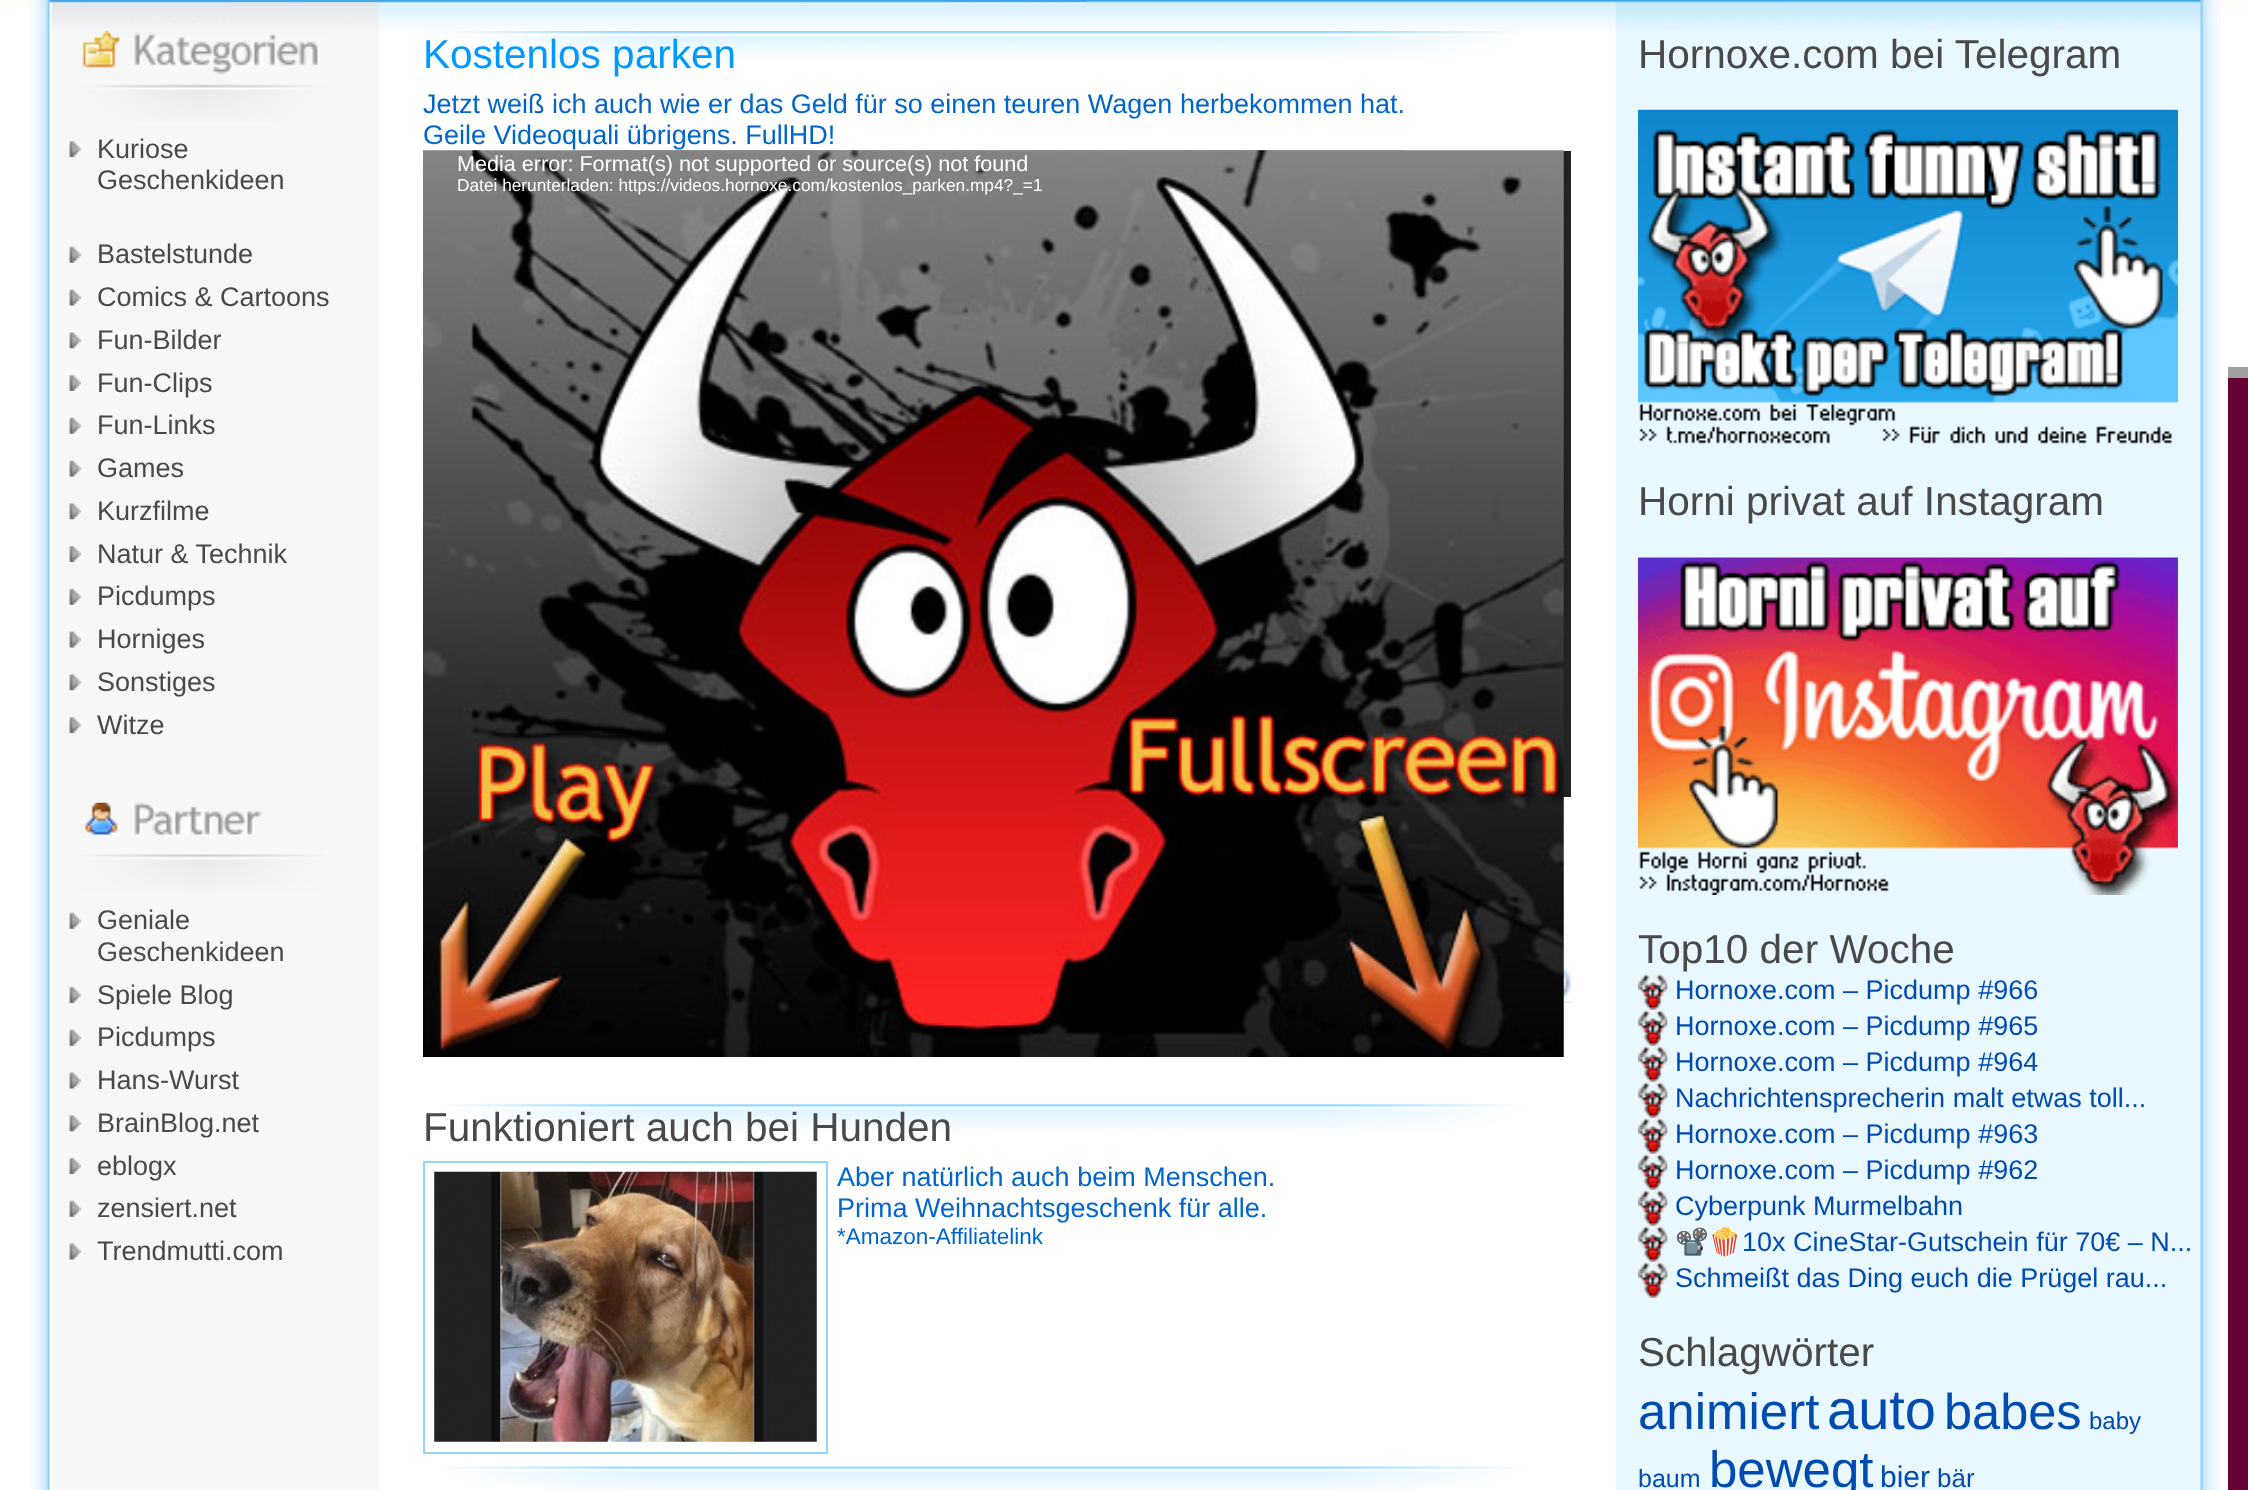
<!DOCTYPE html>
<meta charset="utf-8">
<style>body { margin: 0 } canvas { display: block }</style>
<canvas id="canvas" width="2248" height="1490"></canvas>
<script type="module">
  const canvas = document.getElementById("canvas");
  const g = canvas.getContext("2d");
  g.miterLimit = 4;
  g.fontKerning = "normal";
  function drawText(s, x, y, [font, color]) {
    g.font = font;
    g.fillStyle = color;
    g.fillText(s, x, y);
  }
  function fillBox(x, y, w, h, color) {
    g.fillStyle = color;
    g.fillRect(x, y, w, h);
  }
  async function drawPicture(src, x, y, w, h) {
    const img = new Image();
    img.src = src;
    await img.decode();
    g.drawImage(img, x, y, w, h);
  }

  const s1 = ["27px Liberation Sans", "#494949"];
  const s2 = ["40.5px Liberation Sans", "#0099FF"];
  const s3 = ["27px Liberation Sans", "#0066CC"];
  const s4 = ["21.6px Liberation Sans", "#FFFFFF"];
  const s5 = ["17.3px Liberation Sans", "#FFFFFF"];
  const s6 = ["40.5px Liberation Sans", "#494949"];
  const s7 = ["22.5px Liberation Sans", "#0066CC"];
  const s8 = ["27px Liberation Sans", "#004BB0"];
  const s9 = ["27px Noto Color Emoji", "#004BB0"];
  const s10 = ["51px Liberation Sans", "#004BB0"];
  const s11 = ["56px Liberation Sans", "#004BB0"];
  const s12 = ["50.5px Liberation Sans", "#004BB0"];
  const s13 = ["24px Liberation Sans", "#004BB0"];
  const s14 = ["25px Liberation Sans", "#004BB0"];
  const s15 = ["30px Liberation Sans", "#004BB0"];
  const s16 = ["26px Liberation Sans", "#004BB0"];

  fillBox(0, 0, 2248, 1490, "#FFFFFF");
  fillBox(0, 0, 2248, 7, "#FFFDFA");
  await drawPicture("pic1.png", 29, 0, 2192, 31);
  await drawPicture("pic2.png", 49, 1, 201, 1);
  await drawPicture("pic3.png", 249, 1, 204, 1);
  await drawPicture("pic4.png", 452, 1, 172, 1);
  await drawPicture("pic5.png", 623, 1, 185, 1);
  await drawPicture("pic6.png", 807, 1, 141, 1);
  await drawPicture("pic7.png", 947, 0, 140, 2);
  await drawPicture("pic8.png", 29, 31, 2192, 1459);
  await drawPicture("pic9.png", 79, 31, 245, 90);
  await drawPicture("pic10.png", 69, 140, 12, 17);
  drawText("Kuriose", 97, 158, s1);
  drawText("Geschenkideen", 97, 189, s1);
  await drawPicture("pic11.png", 69, 246, 12, 17);
  drawText("Bastelstunde", 97, 263, s1);
  await drawPicture("pic12.png", 69, 289, 12, 17);
  drawText("Comics & Cartoons", 97, 306, s1);
  await drawPicture("pic13.png", 69, 332, 12, 17);
  drawText("Fun-Bilder", 97, 349, s1);
  await drawPicture("pic10.png", 69, 374, 12, 17);
  drawText("Fun-Clips", 97, 392, s1);
  await drawPicture("pic11.png", 69, 417, 12, 17);
  drawText("Fun-Links", 97, 434, s1);
  await drawPicture("pic14.png", 69, 460, 12, 17);
  drawText("Games", 97, 477, s1);
  await drawPicture("pic13.png", 69, 503, 12, 17);
  drawText("Kurzfilme", 97, 520, s1);
  await drawPicture("pic10.png", 69, 545, 12, 17);
  drawText("Natur & Technik", 97, 563, s1);
  await drawPicture("pic11.png", 69, 588, 12, 17);
  drawText("Picdumps", 97, 605, s1);
  await drawPicture("pic12.png", 69, 631, 12, 17);
  drawText("Horniges", 97, 648, s1);
  await drawPicture("pic13.png", 69, 674, 12, 17);
  drawText("Sonstiges", 97, 691, s1);
  await drawPicture("pic10.png", 69, 716, 12, 17);
  drawText("Witze", 97, 734, s1);
  await drawPicture("pic15.png", 78, 802, 247, 90);
  await drawPicture("pic11.png", 69, 912, 12, 17);
  drawText("Geniale", 97, 929, s1);
  drawText("Geschenkideen", 97, 961, s1);
  await drawPicture("pic10.png", 69, 986, 12, 17);
  drawText("Spiele Blog", 97, 1004, s1);
  await drawPicture("pic11.png", 69, 1029, 12, 17);
  drawText("Picdumps", 97, 1046, s1);
  await drawPicture("pic12.png", 69, 1072, 12, 17);
  drawText("Hans-Wurst", 97, 1089, s1);
  await drawPicture("pic13.png", 69, 1115, 12, 17);
  drawText("BrainBlog.net", 97, 1132, s1);
  await drawPicture("pic10.png", 69, 1157, 12, 17);
  drawText("eblogx", 97, 1175, s1);
  await drawPicture("pic11.png", 69, 1200, 12, 17);
  drawText("zensiert.net", 97, 1217, s1);
  await drawPicture("pic12.png", 69, 1243, 12, 17);
  drawText("Trendmutti.com", 97, 1260, s1);
  fillBox(378, 32, 1238, 1458, "#FFFFFF");
  await drawPicture("pic16.png", 438, 31, 1086, 29);
  drawText("Kostenlos parken", 423, 68, s2);
  drawText("Jetzt weiß ich auch wie er das Geld für so einen teuren Wagen herbekommen hat.", 423, 113, s3);
  drawText("Geile Videoquali übrigens. FullHD!", 423, 144, s3);
  fillBox(1563, 151, 8, 646, "#222222");
  await drawPicture("pic17.png", 589, 150, 815, 1);
  fillBox(1563, 1001, 8, 2, "#EEEEEE");
  await drawPicture("pic19.png", 1563, 966, 8, 34);
  await drawPicture("pic18.png", 423, 150, 1141, 907);
  drawText("Media error: Format(s) not supported or source(s) not found", 457, 171, s4);
  drawText("Datei herunterladen: https://videos.hornoxe.com/kostenlos_parken.mp4?_=1", 457, 191, s5);
  await drawPicture("pic20.png", 438, 1104, 1086, 29);
  drawText("Funktioniert auch bei Hunden", 423, 1141, s6);
  g.strokeStyle = "#8ED6FF";
  g.lineWidth = 2;
  g.strokeRect(424, 1162, 403, 291);
  await drawPicture("pic21.png", 434, 1171, 383, 271);
  drawText("Aber natürlich auch beim Menschen.", 837, 1186, s3);
  drawText("Prima Weihnachtsgeschenk für alle.", 837, 1217, s3);
  drawText("*Amazon-Affiliatelink", 837, 1244, s7);
  await drawPicture("pic22.png", 438, 1466, 1086, 24);
  drawText("Hornoxe.com bei Telegram", 1638, 68, s6);
  await drawPicture("pic23.png", 1638, 109, 540, 335);
  drawText("Horni privat auf Instagram", 1638, 515, s6);
  await drawPicture("pic24.png", 1638, 557, 540, 338);
  drawText("Top10 der Woche", 1638, 963, s6);
  await drawPicture("pic25.png", 1638, 973, 30, 37);
  drawText("Hornoxe.com – Picdump #966", 1675, 999, s8);
  await drawPicture("pic26.png", 1638, 1009, 30, 37);
  drawText("Hornoxe.com – Picdump #965", 1675, 1035, s8);
  await drawPicture("pic26.png", 1638, 1045, 30, 37);
  drawText("Hornoxe.com – Picdump #964", 1675, 1071, s8);
  await drawPicture("pic26.png", 1638, 1081, 30, 37);
  drawText("Nachrichtensprecherin malt etwas toll...", 1675, 1107, s8);
  await drawPicture("pic26.png", 1638, 1117, 30, 37);
  drawText("Hornoxe.com – Picdump #963", 1675, 1143, s8);
  await drawPicture("pic26.png", 1638, 1153, 30, 37);
  drawText("Hornoxe.com – Picdump #962", 1675, 1179, s8);
  await drawPicture("pic26.png", 1638, 1189, 30, 37);
  drawText("Cyberpunk Murmelbahn", 1675, 1215, s8);
  await drawPicture("pic26.png", 1638, 1225, 30, 37);
  drawText("📽️🍿", 1675, 1251, s9);
  drawText("10x CineStar-Gutschein für 70€ – N...", 1742, 1251, s8);
  await drawPicture("pic27.png", 1638, 1261, 30, 37);
  drawText("Schmeißt das Ding euch die Prügel rau...", 1675, 1287, s8);
  drawText("Schlagwörter", 1638, 1366, s6);
  drawText("animiert", 1638, 1429, s10);
  drawText("auto", 1827, 1429, s11);
  drawText("babes", 1944, 1429, s12);
  drawText("baby", 2089, 1429, s13);
  drawText("baum", 1638, 1487, s14);
  drawText("bewegt", 1709, 1487, s10);
  drawText("bier", 1880, 1487, s15);
  drawText("bär", 1937, 1487, s16);
  fillBox(2228, 367, 20, 11, "#A0A0A0");
  fillBox(2228, 378, 20, 1112, "#660033");
</script>
